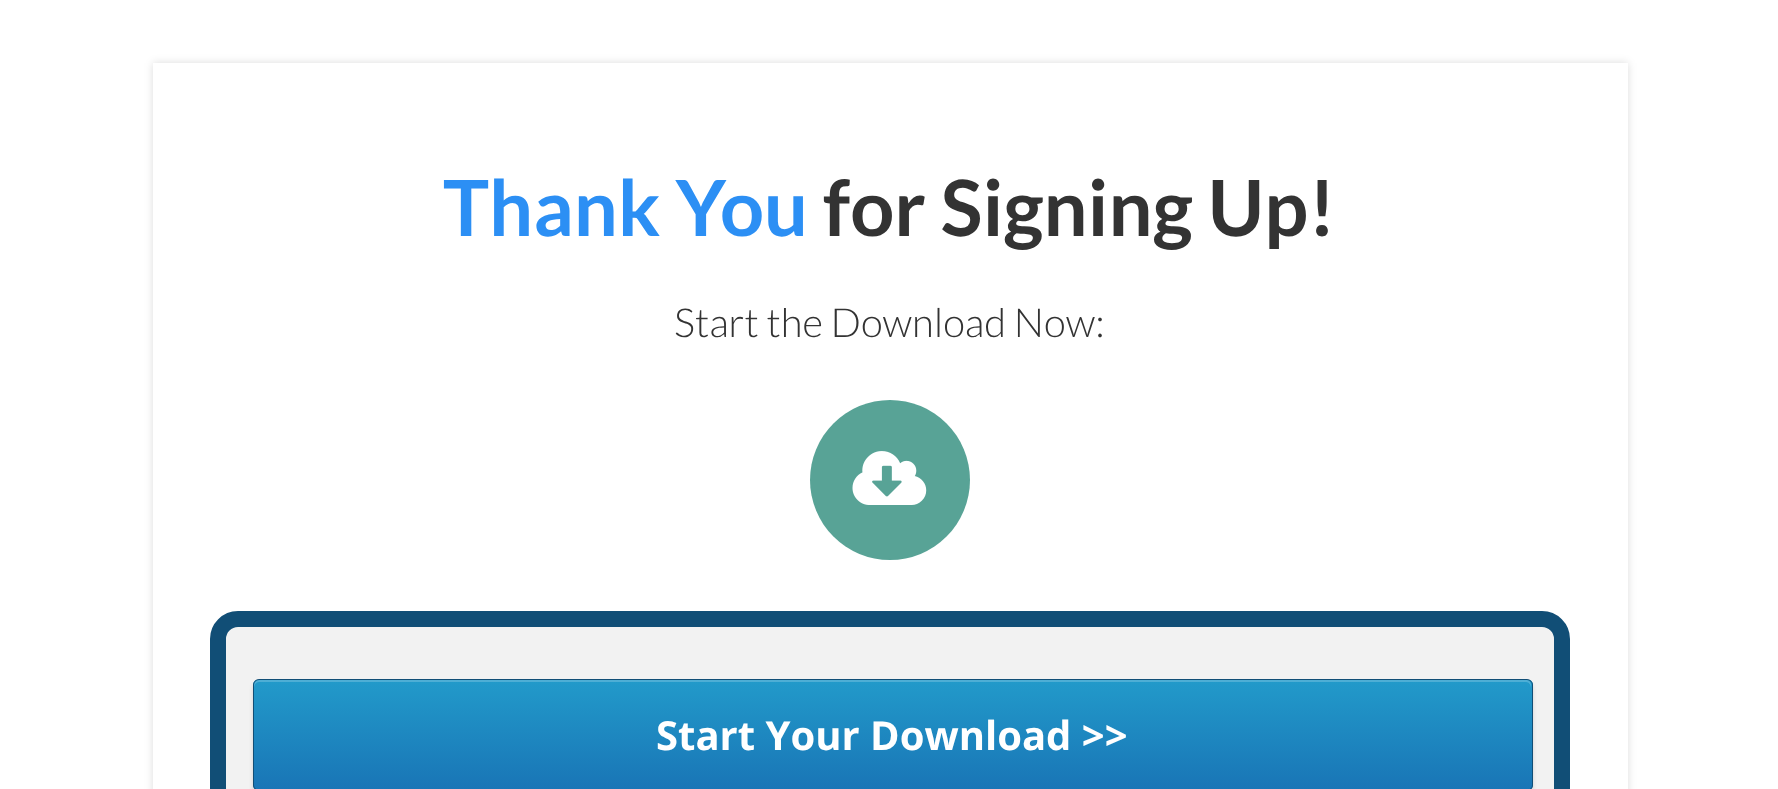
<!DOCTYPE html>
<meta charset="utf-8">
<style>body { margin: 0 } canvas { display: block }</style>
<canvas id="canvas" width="1778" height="789"></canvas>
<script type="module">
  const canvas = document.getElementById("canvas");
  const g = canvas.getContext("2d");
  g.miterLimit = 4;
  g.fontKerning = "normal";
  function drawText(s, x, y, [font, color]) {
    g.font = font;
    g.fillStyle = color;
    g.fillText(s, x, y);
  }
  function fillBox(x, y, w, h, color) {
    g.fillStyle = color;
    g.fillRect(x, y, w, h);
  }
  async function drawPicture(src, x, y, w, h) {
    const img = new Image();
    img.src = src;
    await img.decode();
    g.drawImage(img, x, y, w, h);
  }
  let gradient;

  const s1 = ["bold 77.5px Lato", "#2C8FF4"];
  const s2 = ["bold 77.5px Lato", "#333333"];
  const s3 = ["300 40px Lato", "#333333"];
  const s4 = ["bold 40px Open Sans", "#FFFFFF"];

  fillBox(0, 0, 1778, 789, "#FFFFFF");
  g.fillStyle = "rgba(0, 0, 0, 0.14)";
  g.filter = "blur(4px)";
  g.beginPath();
  g.rect(153, 63, 1475, 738);
  g.fill();
  g.filter = "none";
  fillBox(153, 63, 1475, 726, "#FFFFFF");
  drawText("Thank You", 443, 236, s1);
  drawText("for Signing Up!", 823, 236, s2);
  drawText("Start the Download Now:", 674, 337, s3);
  g.fillStyle = "#58A396";
  g.beginPath();
  g.arc(890, 480, 80, 0, Math.PI * 2);
  g.fill();
  await drawPicture("pic1.png", 852, 451, 75, 54);
  g.fillStyle = "#F2F2F2";
  g.beginPath();
  g.roundRect(218, 619, 1344, 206, 20);
  g.fill();
  g.strokeStyle = "#114E76";
  g.lineWidth = 16;
  g.stroke();
  g.fillStyle = "rgba(0, 0, 0, 0.13)";
  g.filter = "blur(2px)";
  g.beginPath();
  g.roundRect(253, 683, 1280, 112, 6);
  g.fill();
  g.filter = "none";
  g.save();
  g.beginPath();
  g.roundRect(253, 679, 1280, 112, 6);
  g.clip();
  gradient = g.createLinearGradient(893, 680, 893, 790);
  gradient.addColorStop(0, "#229ACA");
  gradient.addColorStop(1, "#1975B6");
  g.fillStyle = gradient;
  g.fillRect(253, 680, 1280, 109);
  g.restore();
  g.fillStyle = "#4EAED5";
  g.beginPath();
  g.moveTo(259, 682);
  g.lineTo(1526, 682);
  g.bezierCurveTo(1529, 682, 1531, 685, 1531, 688);
  g.lineTo(1531, 685);
  g.bezierCurveTo(1531, 682, 1529, 680, 1526, 680);
  g.lineTo(259, 680);
  g.bezierCurveTo(256, 680, 254, 682, 254, 685);
  g.lineTo(254, 688);
  g.bezierCurveTo(254, 685, 256, 682, 259, 682);
  g.closePath();
  g.fill();
  g.beginPath();
  g.roundRect(253.5, 679.5, 1279, 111, 5.5);
  g.lineWidth = 1;
  g.stroke();
  drawText("Start Your Download >>", 656, 750, s4);
</script>
